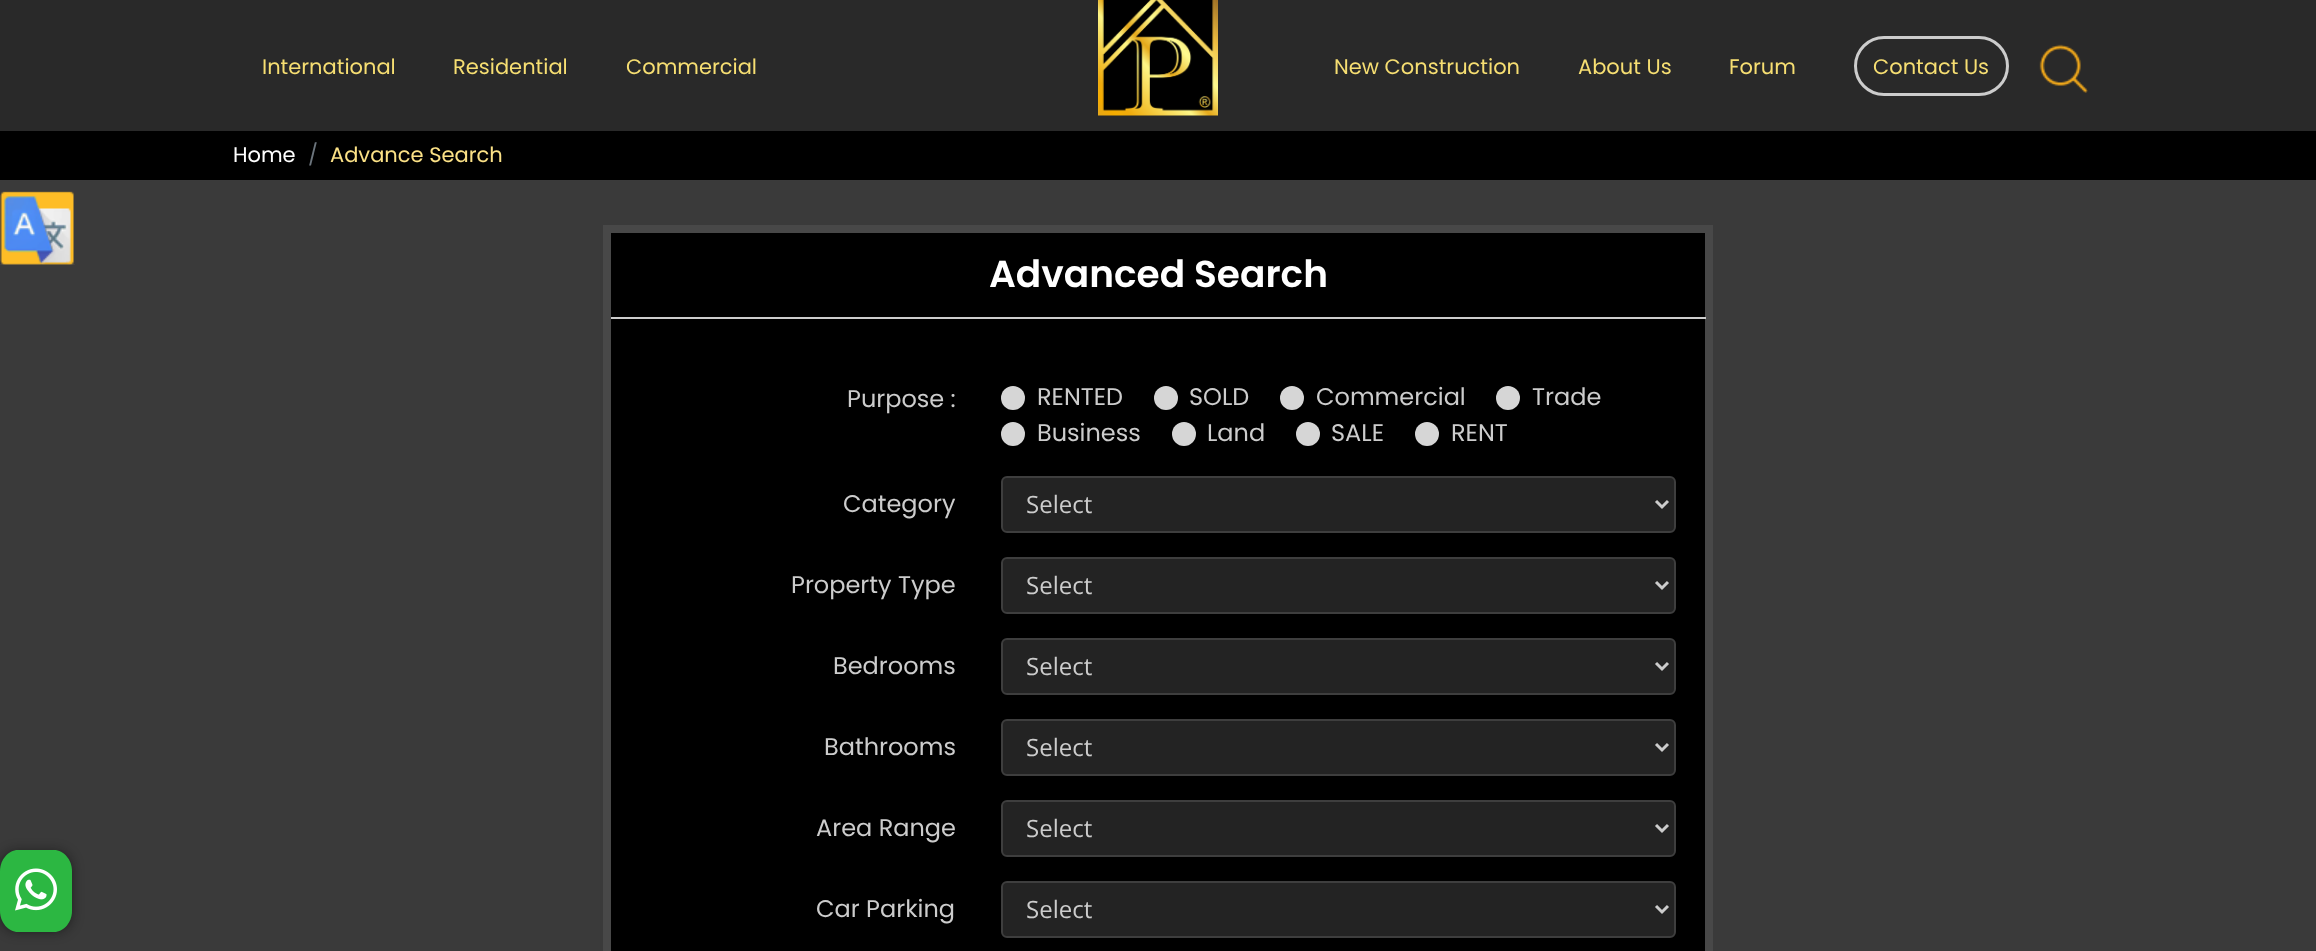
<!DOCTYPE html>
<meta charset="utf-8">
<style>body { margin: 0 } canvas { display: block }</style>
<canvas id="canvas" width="2316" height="951"></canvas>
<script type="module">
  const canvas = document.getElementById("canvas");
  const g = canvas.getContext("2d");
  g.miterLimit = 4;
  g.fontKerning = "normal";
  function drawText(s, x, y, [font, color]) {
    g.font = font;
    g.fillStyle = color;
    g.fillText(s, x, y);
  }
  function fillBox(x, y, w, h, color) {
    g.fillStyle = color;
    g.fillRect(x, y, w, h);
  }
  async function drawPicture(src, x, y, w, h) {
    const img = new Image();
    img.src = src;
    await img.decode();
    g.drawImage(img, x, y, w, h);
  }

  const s1 = ["21px Poppins", "#F6DE72"];
  const s2 = ["21px Poppins", "#FFFFFF"];
  const s3 = ["21px Poppins", "#6C757D"];
  const s4 = ["21px Poppins", "#FBE186"];
  const s5 = ["600 37.5px Poppins", "#FFFFFF"];
  const s6 = ["24px Poppins", "#CCCCCC"];
  const s7 = ["24px Open Sans", "#CCCCCC"];

  fillBox(0, 0, 2316, 951, "#3A3A3A");
  fillBox(0, 0, 2316, 131, "#292929");
  await drawPicture("pic1.png", 1098, 0, 120, 116);
  drawText("International", 262, 74, s1);
  drawText("Residential", 453, 74, s1);
  drawText("Commercial", 626, 74, s1);
  drawText("New Construction", 1334, 74, s1);
  drawText("About Us", 1578, 74, s1);
  drawText("Forum", 1729, 74, s1);
  g.beginPath();
  g.roundRect(1855.5, 37.5, 152, 57, 28.5);
  g.strokeStyle = "#CCCCCC";
  g.lineWidth = 3;
  g.stroke();
  drawText("Contact Us", 1873, 74, s1);
  await drawPicture("pic2.png", 2039, 44, 49, 49);
  fillBox(0, 131, 2316, 49, "#000000");
  drawText("Home", 233, 162, s2);
  drawText("/", 308, 162, s3);
  drawText("Advance Search", 330, 162, s4);
  await drawPicture("pic3.png", 0, 191, 75, 74);
  g.fillStyle = "rgba(5, 5, 5, 0.5)";
  g.filter = "blur(6px)";
  g.beginPath();
  g.roundRect(0, 851, 72, 81, 18);
  g.fill();
  g.filter = "none";
  g.fillStyle = "#2CB742";
  g.beginPath();
  g.moveTo(18, 850);
  g.lineTo(54, 850);
  g.bezierCurveTo(64, 850, 72, 860, 72, 871);
  g.lineTo(72, 911);
  g.bezierCurveTo(72, 922, 64, 932, 54, 932);
  g.lineTo(18, 932);
  g.bezierCurveTo(8, 932, 0, 922, 0, 911);
  g.lineTo(0, 871);
  g.bezierCurveTo(0, 860, 8, 850, 18, 850);
  g.closePath();
  g.fill();
  await drawPicture("pic4.png", 15, 868, 42, 43);
  g.fillStyle = "#000000";
  g.beginPath();
  g.rect(607, 229, 1102, 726);
  g.fill();
  g.strokeStyle = "#484848";
  g.lineWidth = 8;
  g.stroke();
  fillBox(611, 317, 1095, 2, "#CCCCCC");
  drawText("Advanced Search", 989, 287, s5);
  drawText("Purpose :", 847, 407, s6);
  g.fillStyle = "#D6D6D6";
  g.beginPath();
  g.arc(1013, 398, 12, 0, Math.PI * 2);
  g.fill();
  drawText("RENTED", 1037, 405, s6);
  g.fillStyle = "#D6D6D6";
  g.beginPath();
  g.arc(1166, 398, 12, 0, Math.PI * 2);
  g.fill();
  drawText("SOLD", 1189, 405, s6);
  g.fillStyle = "#D6D6D6";
  g.beginPath();
  g.arc(1292, 398, 12, 0, Math.PI * 2);
  g.fill();
  drawText("Commercial", 1316, 405, s6);
  g.fillStyle = "#D6D6D6";
  g.beginPath();
  g.arc(1508, 398, 12, 0, Math.PI * 2);
  g.fill();
  drawText("Trade", 1532, 405, s6);
  g.fillStyle = "#D6D6D6";
  g.beginPath();
  g.arc(1013, 434, 12, 0, Math.PI * 2);
  g.fill();
  drawText("Business", 1037, 441, s6);
  g.fillStyle = "#D6D6D6";
  g.beginPath();
  g.arc(1184, 434, 12, 0, Math.PI * 2);
  g.fill();
  drawText("Land", 1207, 441, s6);
  g.fillStyle = "#D6D6D6";
  g.beginPath();
  g.arc(1308, 434, 12, 0, Math.PI * 2);
  g.fill();
  drawText("SALE", 1331, 441, s6);
  g.fillStyle = "#D6D6D6";
  g.beginPath();
  g.arc(1427, 434, 12, 0, Math.PI * 2);
  g.fill();
  drawText("RENT", 1451, 441, s6);
  drawText("Category", 843, 512, s6);
  g.fillStyle = "#232323";
  g.beginPath();
  g.roundRect(1002, 477, 673, 55, 5);
  g.fill();
  g.strokeStyle = "#3E3E3E";
  g.lineWidth = 2;
  g.stroke();
  g.beginPath();
  g.moveTo(1656, 501);
  g.lineTo(1662, 507);
  g.lineTo(1668, 501);
  g.strokeStyle = "#CCCCCC";
  g.lineWidth = 3;
  g.stroke();
  drawText("Select", 1026, 513, s7);
  drawText("Property Type", 791, 593, s6);
  g.fillStyle = "#232323";
  g.beginPath();
  g.roundRect(1002, 558, 673, 55, 5);
  g.fill();
  g.strokeStyle = "#3E3E3E";
  g.lineWidth = 2;
  g.stroke();
  g.beginPath();
  g.moveTo(1656, 582);
  g.lineTo(1662, 588);
  g.lineTo(1668, 582);
  g.strokeStyle = "#CCCCCC";
  g.lineWidth = 3;
  g.stroke();
  drawText("Select", 1026, 594, s7);
  drawText("Bedrooms", 833, 674, s6);
  g.fillStyle = "#232323";
  g.beginPath();
  g.roundRect(1002, 639, 673, 55, 5);
  g.fill();
  g.strokeStyle = "#3E3E3E";
  g.lineWidth = 2;
  g.stroke();
  g.beginPath();
  g.moveTo(1656, 663);
  g.lineTo(1662, 669);
  g.lineTo(1668, 663);
  g.strokeStyle = "#CCCCCC";
  g.lineWidth = 3;
  g.stroke();
  drawText("Select", 1026, 675, s7);
  drawText("Bathrooms", 824, 755, s6);
  g.fillStyle = "#232323";
  g.beginPath();
  g.roundRect(1002, 720, 673, 55, 5);
  g.fill();
  g.strokeStyle = "#3E3E3E";
  g.lineWidth = 2;
  g.stroke();
  g.beginPath();
  g.moveTo(1656, 744);
  g.lineTo(1662, 750);
  g.lineTo(1668, 744);
  g.strokeStyle = "#CCCCCC";
  g.lineWidth = 3;
  g.stroke();
  drawText("Select", 1026, 756, s7);
  drawText("Area Range", 816, 836, s6);
  g.fillStyle = "#232323";
  g.beginPath();
  g.roundRect(1002, 801, 673, 55, 5);
  g.fill();
  g.strokeStyle = "#3E3E3E";
  g.lineWidth = 2;
  g.stroke();
  g.beginPath();
  g.moveTo(1656, 825);
  g.lineTo(1662, 831);
  g.lineTo(1668, 825);
  g.strokeStyle = "#CCCCCC";
  g.lineWidth = 3;
  g.stroke();
  drawText("Select", 1026, 837, s7);
  drawText("Car Parking", 816, 917, s6);
  g.fillStyle = "#232323";
  g.beginPath();
  g.roundRect(1002, 882, 673, 55, 5);
  g.fill();
  g.strokeStyle = "#3E3E3E";
  g.lineWidth = 2;
  g.stroke();
  g.beginPath();
  g.moveTo(1656, 906);
  g.lineTo(1662, 912);
  g.lineTo(1668, 906);
  g.strokeStyle = "#CCCCCC";
  g.lineWidth = 3;
  g.stroke();
  drawText("Select", 1026, 918, s7);
</script>
